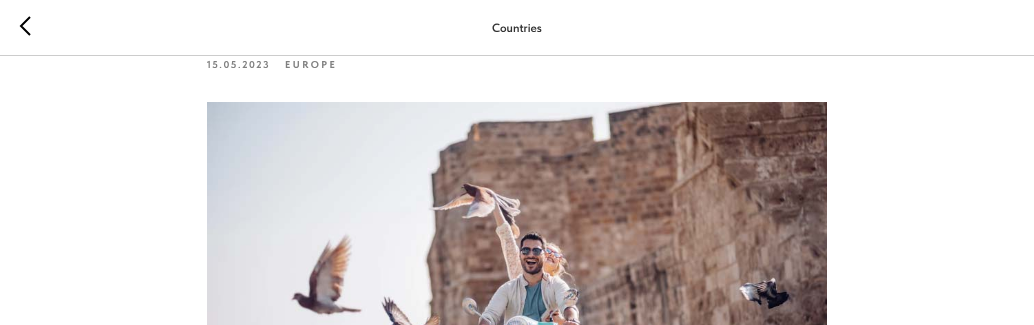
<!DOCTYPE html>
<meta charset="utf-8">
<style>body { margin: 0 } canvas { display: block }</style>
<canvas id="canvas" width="1034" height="325"></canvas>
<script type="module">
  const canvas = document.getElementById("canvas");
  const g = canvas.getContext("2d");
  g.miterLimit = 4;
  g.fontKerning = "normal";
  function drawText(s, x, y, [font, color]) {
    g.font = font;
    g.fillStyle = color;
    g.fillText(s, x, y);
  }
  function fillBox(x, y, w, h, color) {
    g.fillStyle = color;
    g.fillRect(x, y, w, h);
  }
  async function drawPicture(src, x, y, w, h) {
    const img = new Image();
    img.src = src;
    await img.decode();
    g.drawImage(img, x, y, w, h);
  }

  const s1 = ["600 12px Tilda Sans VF", "#333333"];
  const s2 = ["bold 10px Tilda Sans VF", "#808080"];

  fillBox(0, 0, 1034, 325, "#FFFFFF");
  fillBox(0, 55, 1034, 1, "#CCCCCC");
  g.beginPath();
  g.moveTo(30, 35);
  g.lineTo(21, 26);
  g.lineTo(30, 17);
  g.strokeStyle = "#000000";
  g.lineWidth = 2;
  g.stroke();
  drawText("Countries", 492, 32, s1);
  g.letterSpacing = "1.5px";
  drawText("15.05.2023", 207, 68, s2);
  g.letterSpacing = "2.5px";
  drawText("EUROPE", 285, 68, s2);
  await drawPicture("pic1.png", 207, 102, 620, 223);
</script>
